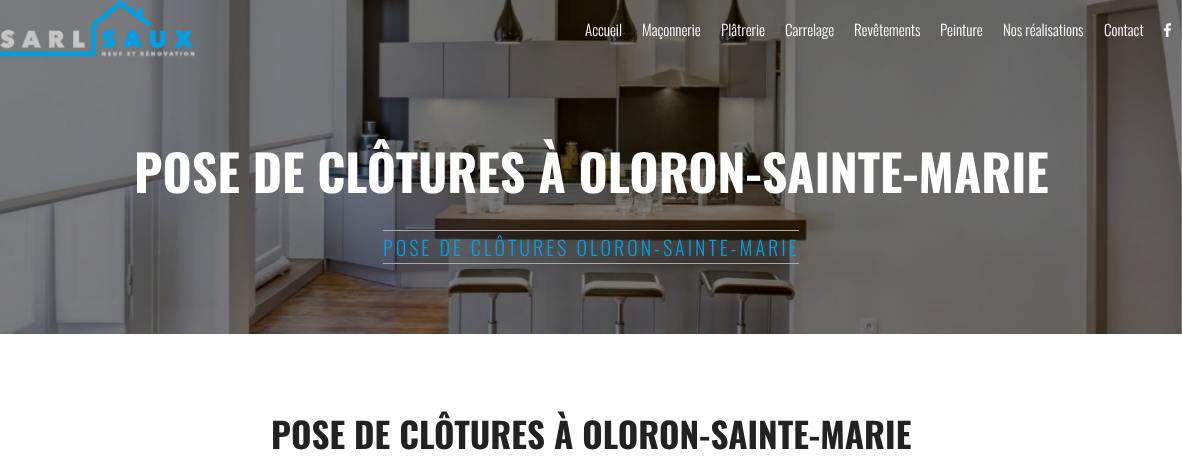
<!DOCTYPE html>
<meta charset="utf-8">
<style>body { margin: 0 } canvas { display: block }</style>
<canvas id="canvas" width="1182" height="469"></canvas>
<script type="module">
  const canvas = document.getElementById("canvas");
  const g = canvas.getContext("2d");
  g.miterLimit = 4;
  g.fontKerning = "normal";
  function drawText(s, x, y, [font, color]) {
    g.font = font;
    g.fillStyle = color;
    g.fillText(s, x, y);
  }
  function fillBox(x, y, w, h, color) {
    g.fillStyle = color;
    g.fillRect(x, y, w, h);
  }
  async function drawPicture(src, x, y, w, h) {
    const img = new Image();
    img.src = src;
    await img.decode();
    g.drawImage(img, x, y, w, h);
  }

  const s1 = ["300 15px Oswald", "#FFFFFF"];
  const s2 = ["bold 50px Oswald", "#FFFFFF"];
  const s3 = ["300 20px Oswald", "#009FE3"];
  const s4 = ["bold 35px Oswald", "#222222"];

  fillBox(0, 0, 1182, 469, "#FFFFFF");
  await drawPicture("pic3.png", 0, 0, 1182, 334);
  await drawPicture("pic1.png", 0, 0, 195, 58);
  drawText("Accueil", 585, 36, s1);
  drawText("Maçonnerie", 642, 36, s1);
  drawText("Plâtrerie", 721, 36, s1);
  drawText("Carrelage", 785, 36, s1);
  drawText("Revêtements", 854, 36, s1);
  drawText("Peinture", 940, 36, s1);
  drawText("Nos réalisations", 1003, 36, s1);
  drawText("Contact", 1104, 36, s1);
  await drawPicture("pic2.png", 1163, 23, 8, 15);
  drawText("POSE DE CLÔTURES À OLORON-SAINTE-MARIE", 134, 193, s2);
  fillBox(383, 230, 416, 1, "#AAAAAA");
  fillBox(383, 263, 416, 1, "#AAAAAA");
  g.letterSpacing = "3px";
  drawText("POSE DE CLÔTURES OLORON-SAINTE-MARIE", 383, 256, s3);
  g.letterSpacing = "0px";
  drawText("POSE DE CLÔTURES À OLORON-SAINTE-MARIE", 271, 449, s4);
</script>
